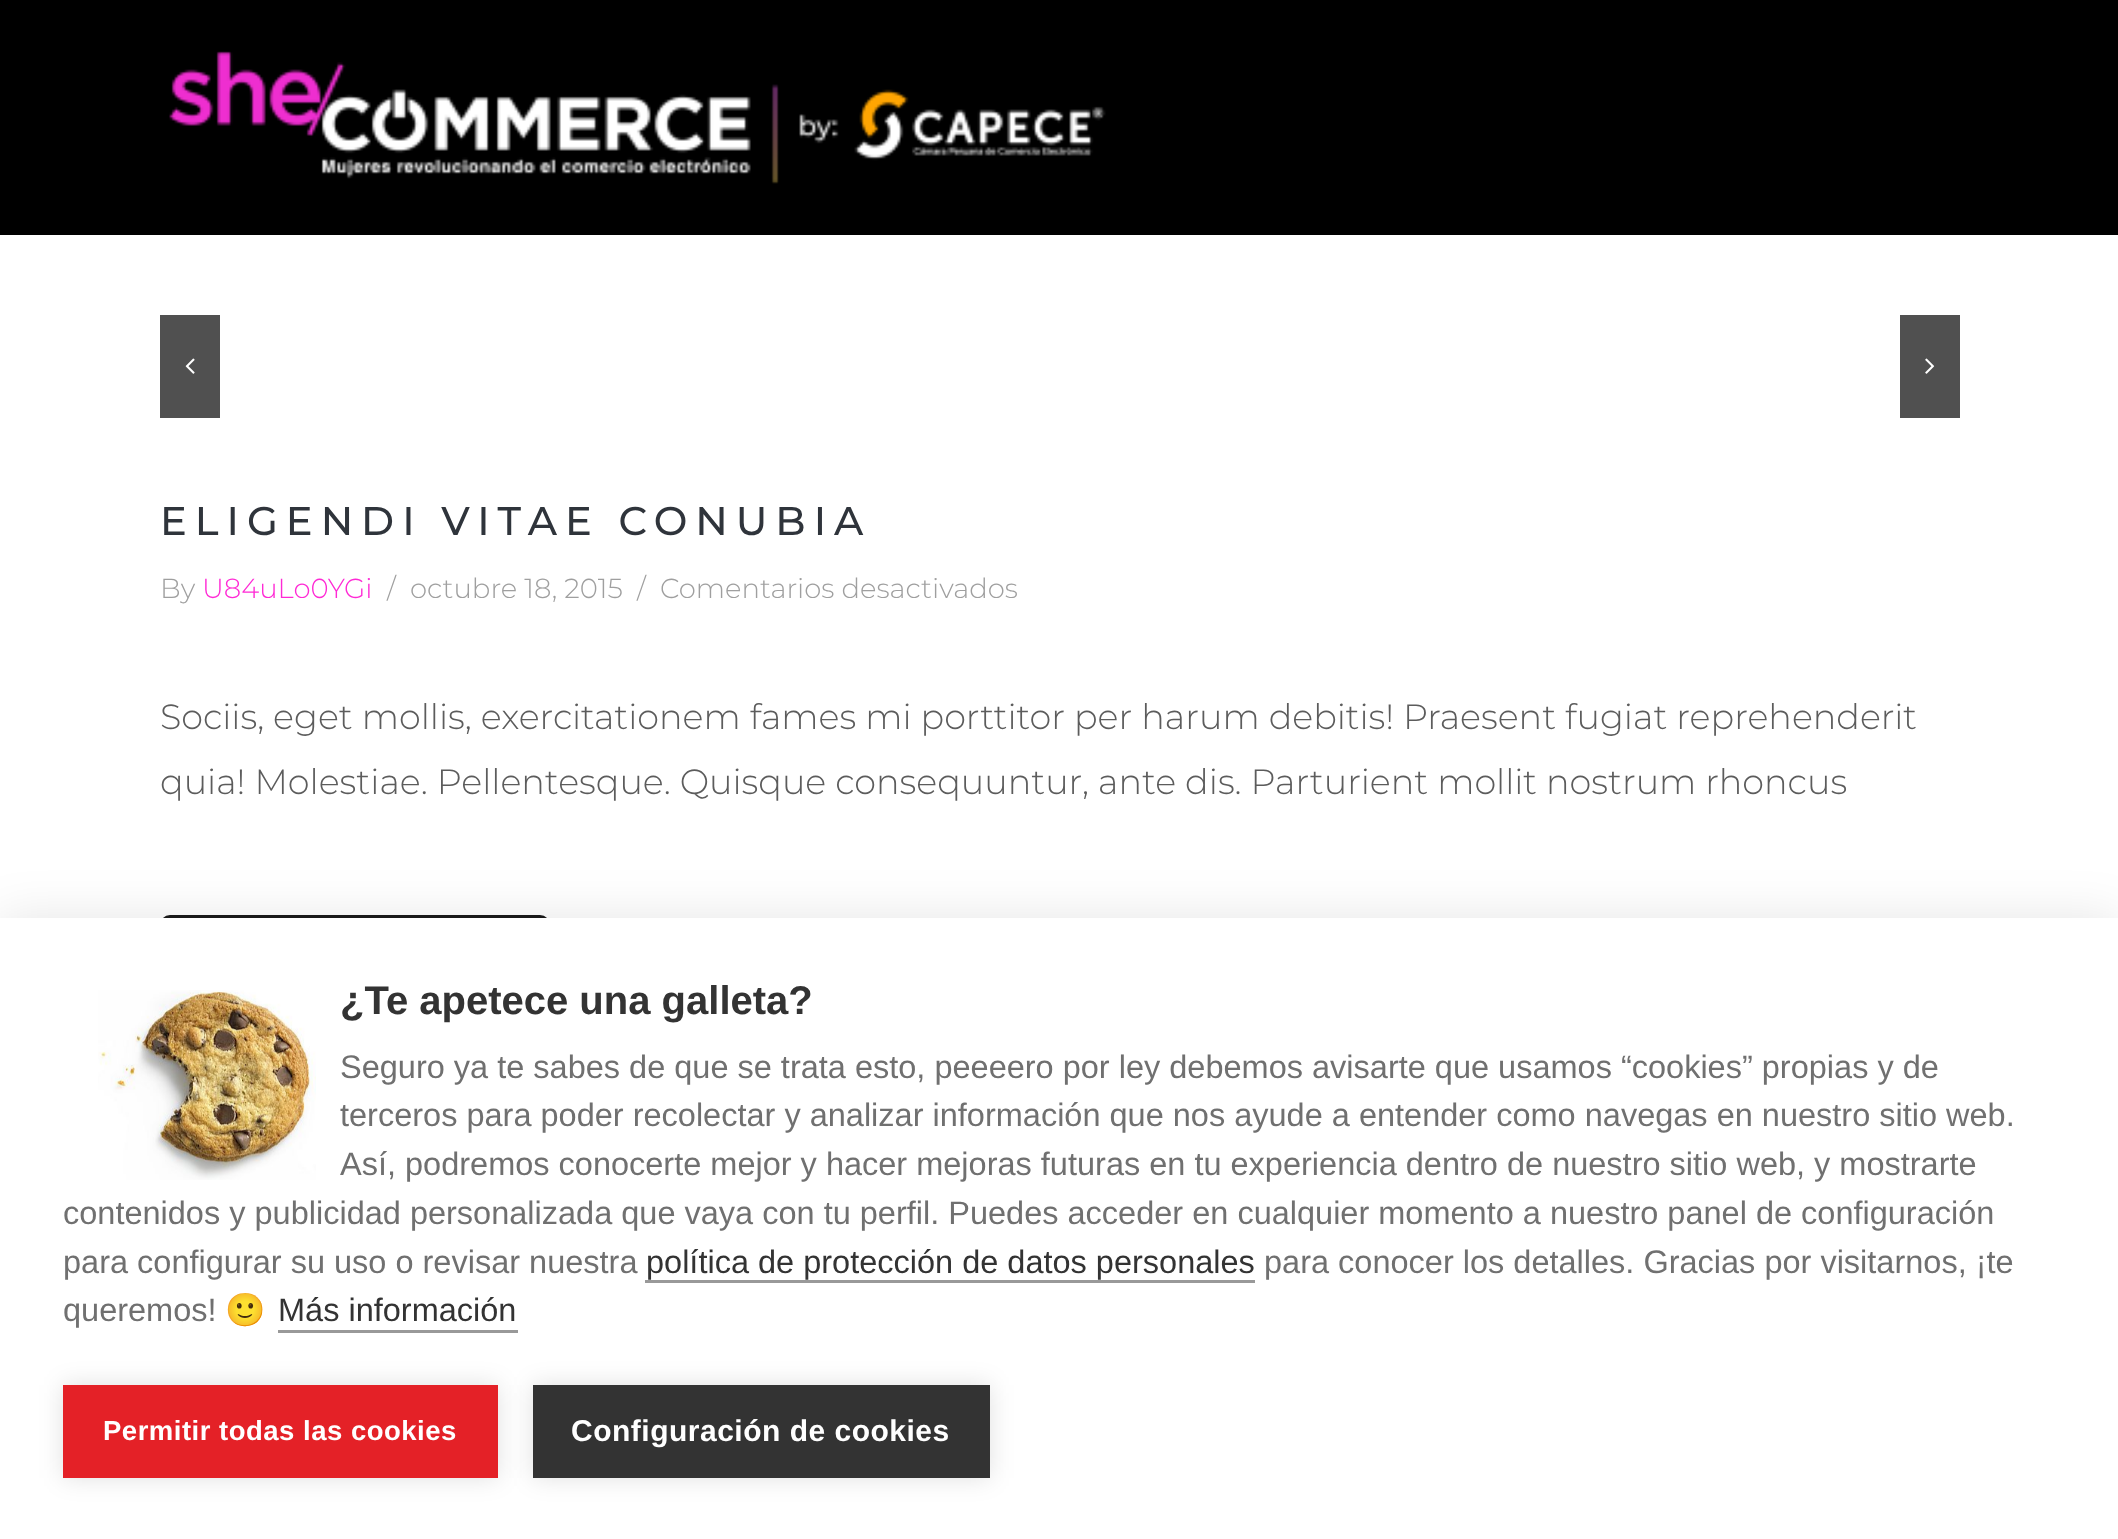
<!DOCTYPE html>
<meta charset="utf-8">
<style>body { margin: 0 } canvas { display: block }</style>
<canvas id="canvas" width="2118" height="1539"></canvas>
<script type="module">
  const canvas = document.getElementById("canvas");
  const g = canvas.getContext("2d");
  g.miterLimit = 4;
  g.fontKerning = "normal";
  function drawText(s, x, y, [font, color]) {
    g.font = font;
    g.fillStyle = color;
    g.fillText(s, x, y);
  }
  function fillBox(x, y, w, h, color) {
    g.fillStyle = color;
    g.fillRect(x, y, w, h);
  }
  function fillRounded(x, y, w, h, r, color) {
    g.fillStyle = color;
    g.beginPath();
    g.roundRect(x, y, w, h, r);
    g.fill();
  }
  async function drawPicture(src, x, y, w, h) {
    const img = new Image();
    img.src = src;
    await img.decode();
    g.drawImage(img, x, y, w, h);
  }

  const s1 = ["500 40px Montserrat", "#2F343B"];
  const s2 = ["300 27.5px Montserrat", "#9F9F9F"];
  const s3 = ["300 27.5px Montserrat", "#FF2AD5"];
  const s4 = ["300 35px Montserrat", "#5C5C5C"];
  const s5 = ["bold 40px Liberation Sans", "#333333"];
  const s6 = ["32.5px Liberation Sans", "#707070"];
  const s7 = ["32.5px Liberation Sans", "#333333"];
  const s8 = ["32.5px Noto Color Emoji", "#707070"];
  const s9 = ["bold 27.5px Liberation Sans", "#FFFFFF"];
  const s10 = ["bold 30px Liberation Sans", "#FFFFFF"];

  fillBox(0, 0, 2118, 1539, "#FFFFFF");
  fillBox(0, 0, 2118, 235, "#000000");
  await drawPicture("pic1.png", 169, 51, 937, 133);
  fillBox(160, 315, 60, 103, "#505050");
  await drawPicture("pic2.png", 185, 358, 10, 16);
  fillBox(1900, 315, 60, 103, "#505050");
  await drawPicture("pic3.png", 1925, 358, 10, 16);
  g.letterSpacing = "8px";
  drawText("ELIGENDI VITAE CONUBIA", 160, 535, s1);
  g.letterSpacing = "0px";
  drawText("By", 160, 598, s2);
  drawText("U84uLo0YGi", 202, 598, s3);
  drawText("/", 387, 598, s2);
  drawText("octubre 18, 2015", 410, 598, s2);
  drawText("/", 637, 598, s2);
  drawText("Comentarios desactivados", 660, 598, s2);
  drawText("Sociis, eget mollis, exercitationem fames mi porttitor per harum debitis! Praesent fugiat reprehenderit", 160, 729, s4);
  drawText("quia! Molestiae. Pellentesque. Quisque consequuntur, ante dis. Parturient mollit nostrum rhoncus", 160, 794, s4);
  fillRounded(160, 915, 390, 120, 10, "#1B1B1B");
  g.fillStyle = "rgba(0, 0, 0, 0.1)";
  g.filter = "blur(25px)";
  g.beginPath();
  g.rect(0, 918, 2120, 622);
  g.fill();
  g.filter = "none";
  fillBox(0, 918, 2118, 621, "#FFFFFF");
  await drawPicture("pic4.png", 98, 990, 218, 190);
  drawText("¿Te apetece una galleta?", 340, 1014, s5);
  drawText("Seguro ya te sabes de que se trata esto, peeeero por ley debemos avisarte que usamos “cookies” propias y de", 340, 1078, s6);
  drawText("terceros para poder recolectar y analizar información que nos ayude a entender como navegas en nuestro sitio web.", 340, 1126, s6);
  drawText("Así, podremos conocerte mejor y hacer mejoras futuras en tu experiencia dentro de nuestro sitio web, y mostrarte", 340, 1175, s6);
  drawText("contenidos y publicidad personalizada que vaya con tu perfil. Puedes acceder en cualquier momento a nuestro panel de configuración", 63, 1224, s6);
  drawText("para configurar su uso o revisar nuestra", 63, 1273, s6);
  drawText("política de protección de datos personales", 646, 1273, s7);
  fillBox(645, 1280, 610, 3, "#999999");
  drawText("para conocer los detalles. Gracias por visitarnos, ¡te", 1264, 1273, s6);
  drawText("queremos!", 63, 1321, s6);
  drawText("🙂", 225, 1321, s8);
  drawText("Más información", 278, 1321, s7);
  fillBox(278, 1330, 240, 3, "#999999");
  g.fillStyle = "rgba(0, 0, 0, 0.12)";
  g.filter = "blur(12.5px)";
  g.beginPath();
  g.rect(63, 1385, 435, 93);
  g.fill();
  g.filter = "none";
  fillBox(63, 1385, 435, 93, "#E42127");
  g.letterSpacing = "0.5px";
  drawText("Permitir todas las cookies", 103, 1440, s9);
  g.fillStyle = "rgba(0, 0, 0, 0.12)";
  g.filter = "blur(12.5px)";
  g.beginPath();
  g.rect(533, 1385, 457, 93);
  g.fill();
  g.filter = "none";
  fillBox(533, 1385, 457, 93, "#333333");
  drawText("Configuración de cookies", 571, 1441, s10);
</script>
